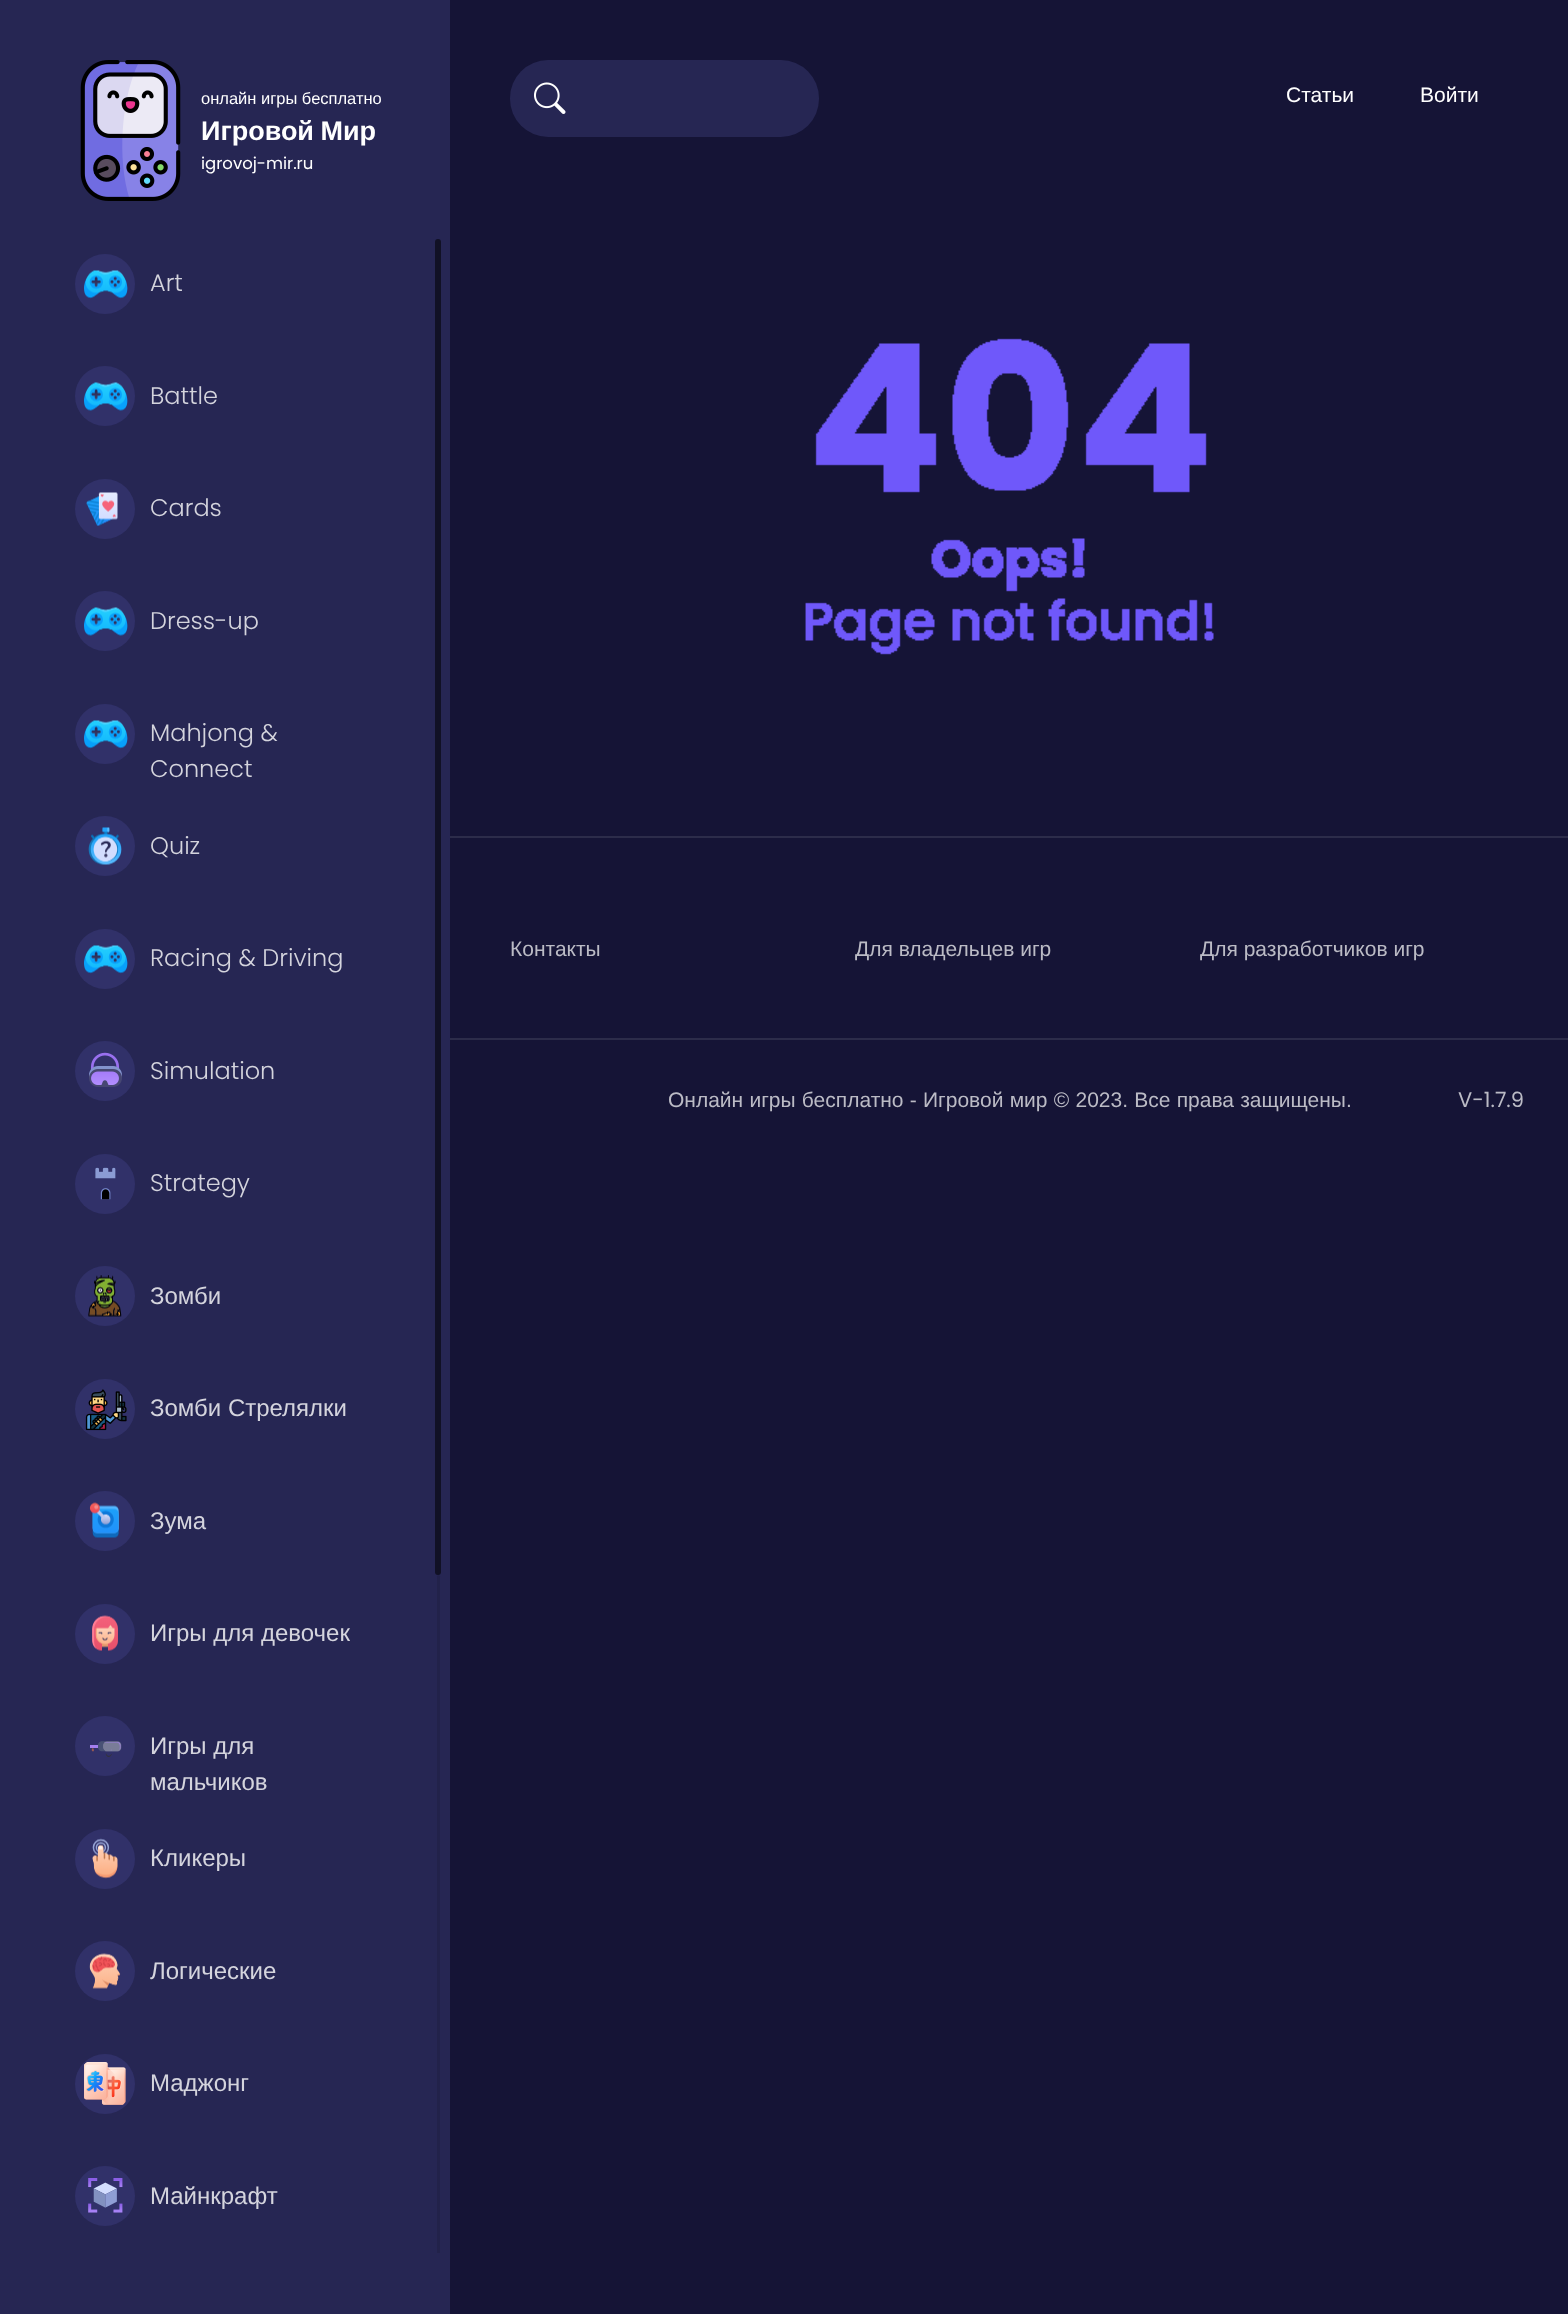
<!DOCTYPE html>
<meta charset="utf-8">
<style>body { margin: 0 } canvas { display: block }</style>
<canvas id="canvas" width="1568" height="2314"></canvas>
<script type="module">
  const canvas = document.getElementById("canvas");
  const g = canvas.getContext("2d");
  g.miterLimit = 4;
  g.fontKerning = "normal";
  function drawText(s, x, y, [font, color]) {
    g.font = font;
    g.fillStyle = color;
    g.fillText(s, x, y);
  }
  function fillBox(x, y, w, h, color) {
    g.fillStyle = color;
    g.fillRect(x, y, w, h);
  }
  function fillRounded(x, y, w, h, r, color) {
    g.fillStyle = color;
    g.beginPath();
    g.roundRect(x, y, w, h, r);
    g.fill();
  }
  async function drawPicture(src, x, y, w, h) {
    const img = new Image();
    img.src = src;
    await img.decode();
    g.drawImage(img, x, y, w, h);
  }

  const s1 = ["16.5px Liberation Sans", "#FFFFFF"];
  const s2 = ["bold 27px Liberation Sans", "#FFFFFF"];
  const s3 = ["16.5px Poppins", "#FFFFFF"];
  const s4 = ["300 24px Poppins", "#D4D4DD"];
  const s5 = ["24px Liberation Sans", "#D4D4DD"];
  const s6 = ["21px Liberation Sans", "#FFFFFF"];
  const s7 = ["21px Liberation Sans", "#BBBBC5"];
  const s8 = ["21px Poppins", "#BBBBC5"];

  fillBox(0, 0, 1568, 2314, "#151436");
  fillBox(0, 0, 450, 2314, "#262653");
  await drawPicture("pic1.png", 80, 60, 101, 141);
  drawText("онлайн игры бесплатно", 201, 104, s1);
  g.wordSpacing = "-1px";
  drawText("Игровой Мир", 201, 140, s2);
  g.wordSpacing = "0px";
  drawText("igrovoj-mir.ru", 201, 169, s3);
  g.fillStyle = "#313169";
  g.beginPath();
  g.arc(105, 284, 30, 0, Math.PI * 2);
  g.fill();
  await drawPicture("pic2.png", 84, 270, 44, 29);
  drawText("Art", 150, 291, s4);
  g.fillStyle = "#313169";
  g.beginPath();
  g.arc(105, 396, 30, 0, Math.PI * 2);
  g.fill();
  await drawPicture("pic3.png", 84, 382, 44, 29);
  drawText("Battle", 150, 404, s4);
  g.fillStyle = "#313169";
  g.beginPath();
  g.arc(105, 509, 30, 0, Math.PI * 2);
  g.fill();
  await drawPicture("pic4.png", 86, 492, 32, 34);
  drawText("Cards", 150, 516, s4);
  g.fillStyle = "#313169";
  g.beginPath();
  g.arc(105, 621, 30, 0, Math.PI * 2);
  g.fill();
  await drawPicture("pic3.png", 84, 607, 44, 29);
  drawText("Dress-up", 150, 629, s4);
  g.fillStyle = "#313169";
  g.beginPath();
  g.arc(105, 734, 30, 0, Math.PI * 2);
  g.fill();
  await drawPicture("pic2.png", 84, 720, 44, 29);
  drawText("Mahjong &", 150, 741, s4);
  drawText("Connect", 150, 777, s4);
  g.fillStyle = "#313169";
  g.beginPath();
  g.arc(105, 846, 30, 0, Math.PI * 2);
  g.fill();
  await drawPicture("pic5.png", 88, 827, 34, 38);
  drawText("Quiz", 150, 854, s4);
  g.fillStyle = "#313169";
  g.beginPath();
  g.arc(105, 959, 30, 0, Math.PI * 2);
  g.fill();
  await drawPicture("pic2.png", 84, 945, 44, 29);
  drawText("Racing & Driving", 150, 966, s4);
  g.fillStyle = "#313169";
  g.beginPath();
  g.arc(105, 1071, 30, 0, Math.PI * 2);
  g.fill();
  await drawPicture("pic6.png", 89, 1052, 33, 35);
  drawText("Simulation", 150, 1079, s4);
  g.fillStyle = "#313169";
  g.beginPath();
  g.arc(105, 1184, 30, 0, Math.PI * 2);
  g.fill();
  await drawPicture("pic7.png", 95, 1167, 21, 33);
  drawText("Strategy", 150, 1191, s4);
  g.fillStyle = "#313169";
  g.beginPath();
  g.arc(105, 1296, 30, 0, Math.PI * 2);
  g.fill();
  await drawPicture("pic8.png", 88, 1275, 34, 42);
  drawText("Зомби", 150, 1304, s5);
  g.fillStyle = "#313169";
  g.beginPath();
  g.arc(105, 1409, 30, 0, Math.PI * 2);
  g.fill();
  await drawPicture("pic9.png", 85, 1389, 42, 42);
  drawText("Зомби Стрелялки", 150, 1416, s5);
  g.fillStyle = "#313169";
  g.beginPath();
  g.arc(105, 1521, 30, 0, Math.PI * 2);
  g.fill();
  await drawPicture("pic10.png", 89, 1502, 30, 36);
  drawText("Зума", 150, 1529, s5);
  g.fillStyle = "#313169";
  g.beginPath();
  g.arc(105, 1634, 30, 0, Math.PI * 2);
  g.fill();
  await drawPicture("pic11.png", 92, 1615, 26, 36);
  drawText("Игры для девочек", 150, 1641, s5);
  g.fillStyle = "#313169";
  g.beginPath();
  g.arc(105, 1746, 30, 0, Math.PI * 2);
  g.fill();
  await drawPicture("pic12.png", 90, 1741, 32, 16);
  drawText("Игры для", 150, 1754, s5);
  drawText("мальчиков", 150, 1790, s5);
  g.fillStyle = "#313169";
  g.beginPath();
  g.arc(105, 1859, 30, 0, Math.PI * 2);
  g.fill();
  await drawPicture("pic13.png", 92, 1838, 26, 41);
  drawText("Кликеры", 150, 1866, s5);
  g.fillStyle = "#313169";
  g.beginPath();
  g.arc(105, 1971, 30, 0, Math.PI * 2);
  g.fill();
  await drawPicture("pic14.png", 89, 1953, 32, 36);
  drawText("Логические", 150, 1979, s5);
  g.fillStyle = "#313169";
  g.beginPath();
  g.arc(105, 2084, 30, 0, Math.PI * 2);
  g.fill();
  await drawPicture("pic15.png", 84, 2062, 42, 43);
  drawText("Маджонг", 150, 2091, s5);
  g.fillStyle = "#313169";
  g.beginPath();
  g.arc(105, 2196, 30, 0, Math.PI * 2);
  g.fill();
  await drawPicture("pic16.png", 88, 2178, 35, 35);
  drawText("Майнкрафт", 150, 2204, s5);
  fillRounded(435, 239, 6, 1336, 3, "#111125");
  g.fillStyle = "#22224A";
  g.beginPath();
  g.roundRect(437, 1575, 3, 678, [1.5, 1.5, 0, 0]);
  g.fill();
  fillRounded(510, 60, 309, 77, 38, "#262653");
  await drawPicture("pic17.png", 534, 82, 32, 32);
  drawText("Статьи", 1286, 102, s6);
  drawText("Войти", 1420, 102, s6);
  await drawPicture("pic18.png", 805, 338, 409, 317);
  fillBox(450, 836, 1118, 2, "#2C2C4A");
  drawText("Контакты", 510, 956, s7);
  drawText("Для владельцев игр", 855, 956, s7);
  drawText("Для разработчиков игр", 1200, 956, s7);
  fillBox(450, 1038, 1118, 2, "#2C2C4A");
  g.wordSpacing = "0.4px";
  drawText("Онлайн игры бесплатно - Игровой мир © 2023. Все права защищены.", 668, 1107, s7);
  g.wordSpacing = "0px";
  drawText("V-1.7.9", 1458, 1107, s8);
</script>
